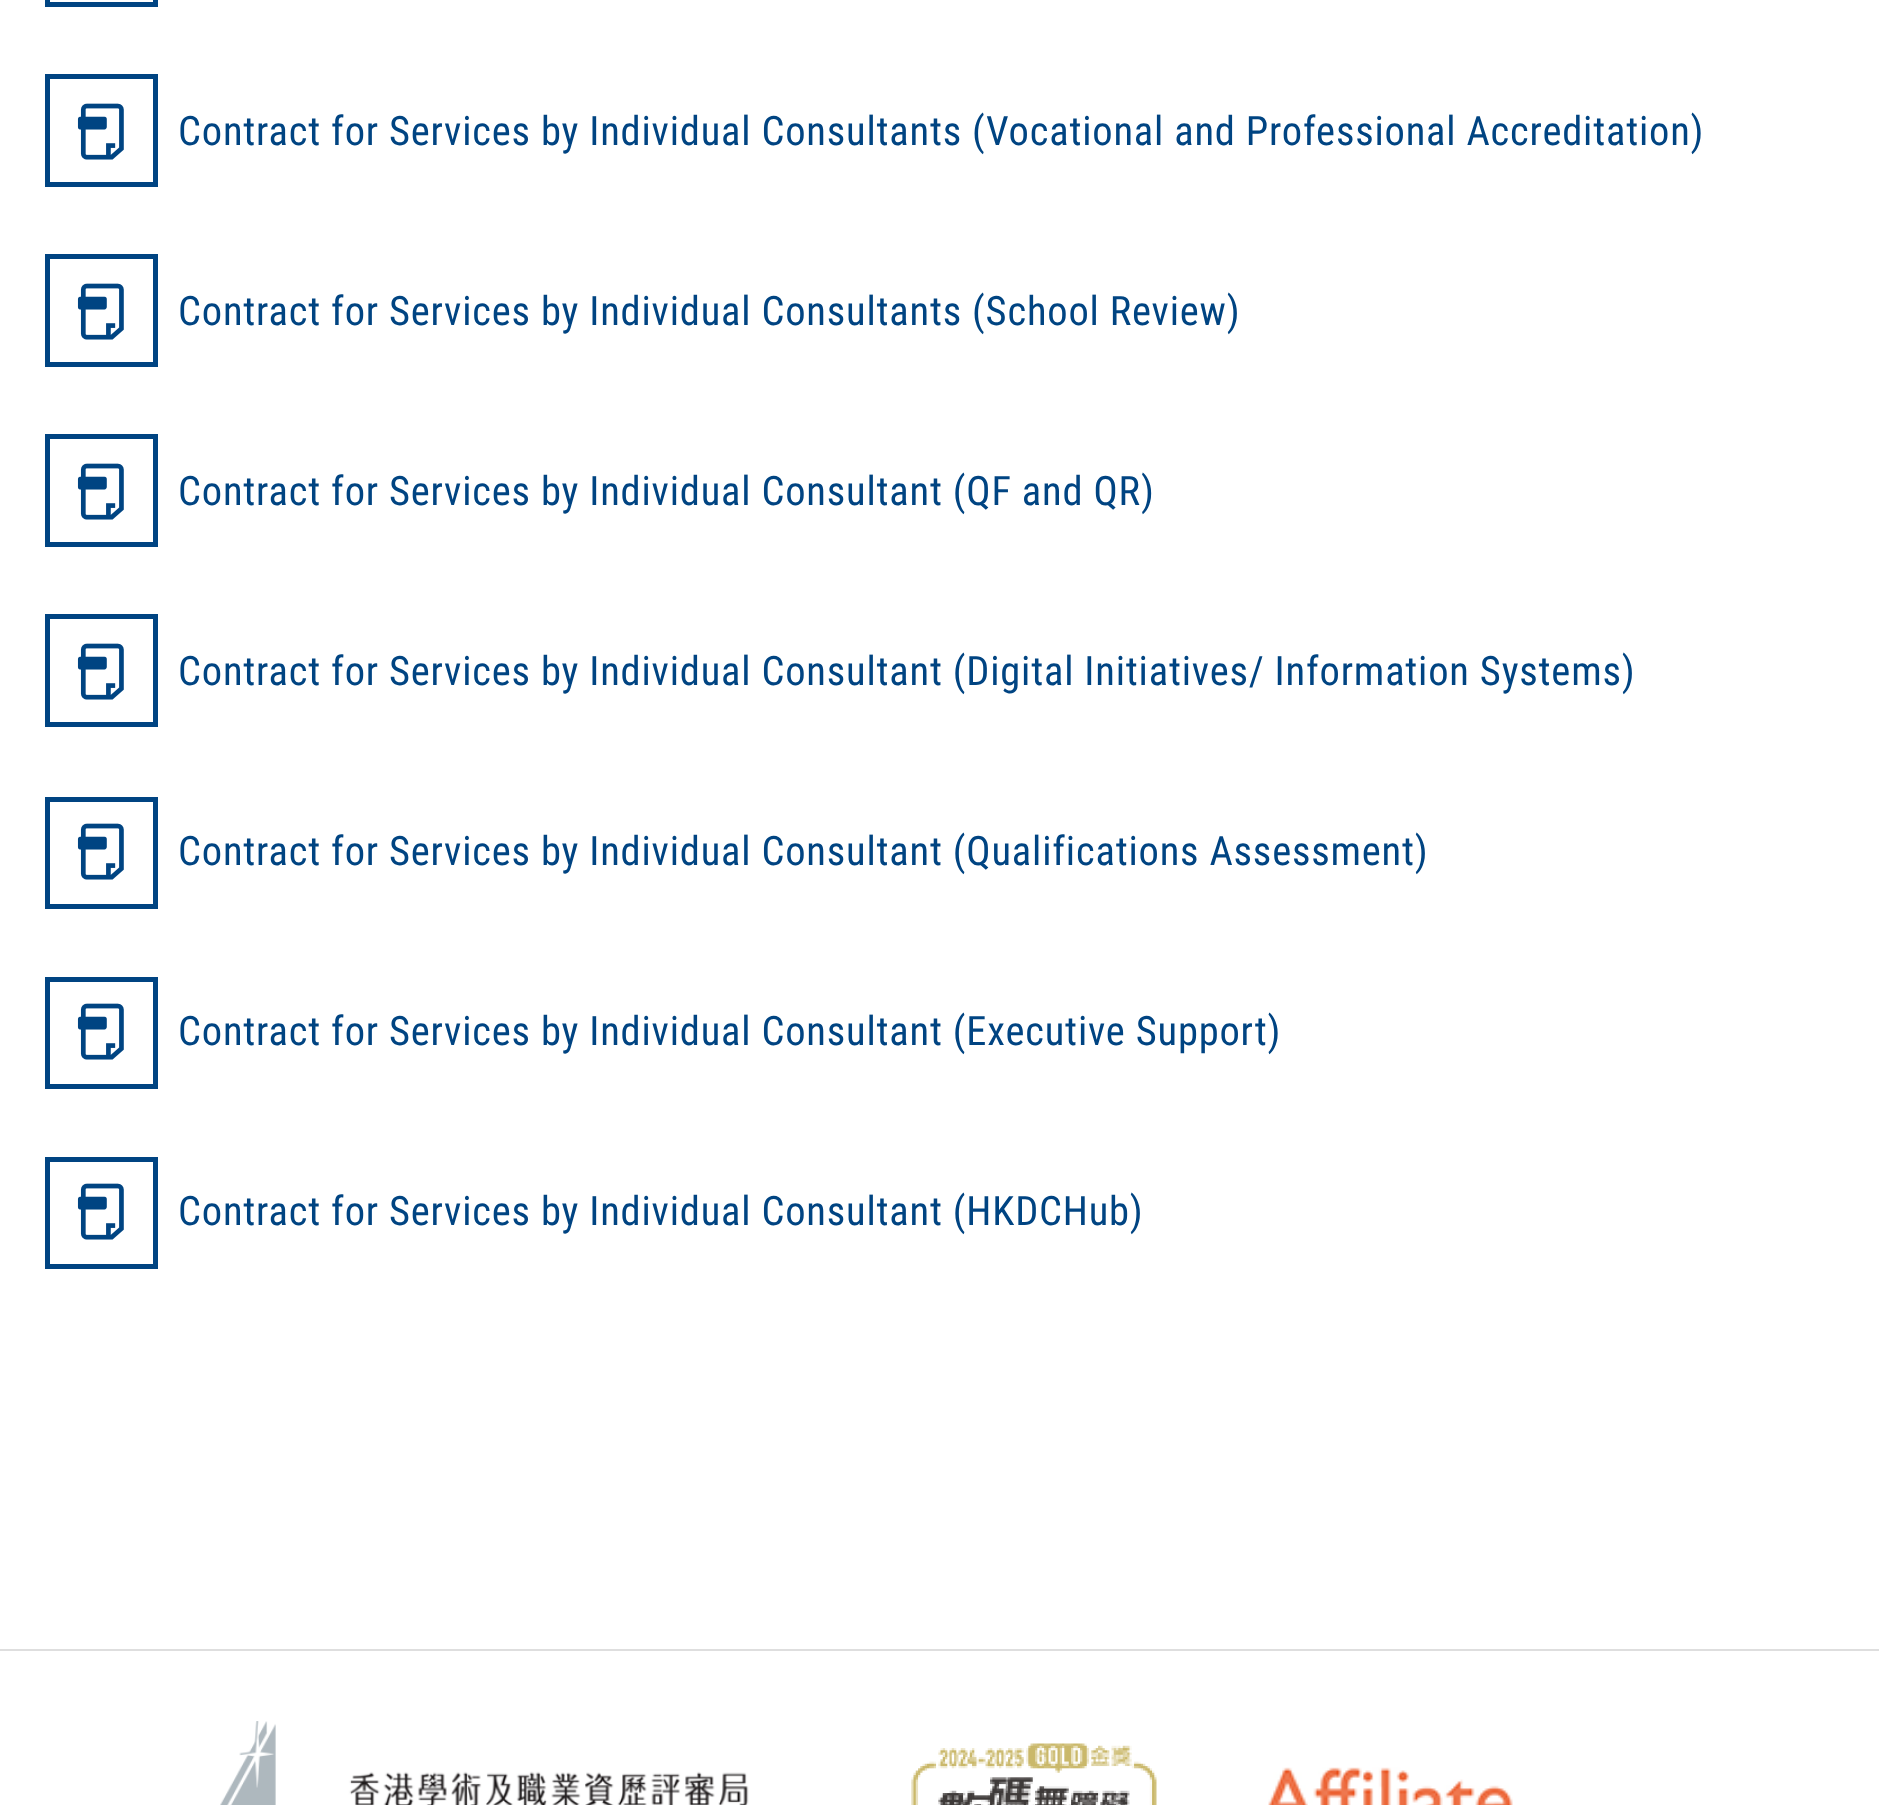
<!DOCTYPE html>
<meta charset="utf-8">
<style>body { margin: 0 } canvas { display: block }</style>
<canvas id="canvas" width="1879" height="1805"></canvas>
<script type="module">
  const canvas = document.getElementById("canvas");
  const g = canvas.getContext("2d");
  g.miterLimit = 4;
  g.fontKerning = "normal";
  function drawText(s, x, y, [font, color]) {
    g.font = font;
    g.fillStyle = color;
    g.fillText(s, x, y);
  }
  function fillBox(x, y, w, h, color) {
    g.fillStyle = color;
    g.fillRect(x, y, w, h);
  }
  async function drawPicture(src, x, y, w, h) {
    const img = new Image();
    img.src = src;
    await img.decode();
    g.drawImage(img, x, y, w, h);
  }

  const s1 = ["40.5px Roboto Condensed", "#004482"];

  fillBox(0, 0, 1879, 1805, "#FFFFFF");
  fillBox(0, 1649, 1879, 2, "#DEDEDE");
  g.strokeStyle = "#004482";
  g.lineWidth = 5;
  g.strokeRect(47.5, -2.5, 108, 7);
  await drawPicture("pic1.png", 77, 103, 47, 57);
  g.strokeRect(47.5, 76.5, 108, 108);
  g.letterSpacing = "0.8px";
  drawText("Contract for Services by Individual Consultants (Vocational and Professional Accreditation)", 178, 145, s1);
  await drawPicture("pic1.png", 77, 283, 47, 57);
  g.strokeRect(47.5, 256.5, 108, 108);
  drawText("Contract for Services by Individual Consultants (School Review)", 178, 325, s1);
  await drawPicture("pic1.png", 77, 463, 47, 57);
  g.strokeRect(47.5, 436.5, 108, 108);
  drawText("Contract for Services by Individual Consultant (QF and QR)", 178, 505, s1);
  await drawPicture("pic1.png", 77, 643, 47, 57);
  g.strokeRect(47.5, 616.5, 108, 108);
  drawText("Contract for Services by Individual Consultant (Digital Initiatives/ Information Systems)", 178, 685, s1);
  await drawPicture("pic1.png", 77, 823, 47, 57);
  g.strokeRect(47.5, 799.5, 108, 107);
  drawText("Contract for Services by Individual Consultant (Qualifications Assessment)", 178, 865, s1);
  await drawPicture("pic1.png", 77, 1003, 47, 57);
  g.strokeRect(47.5, 979.5, 108, 107);
  drawText("Contract for Services by Individual Consultant (Executive Support)", 178, 1045, s1);
  await drawPicture("pic1.png", 77, 1183, 47, 57);
  g.strokeRect(47.5, 1159.5, 108, 107);
  drawText("Contract for Services by Individual Consultant (HKDCHub)", 178, 1225, s1);
  await drawPicture("pic2.png", 220, 1721, 529, 84);
  await drawPicture("pic3.png", 911, 1743, 246, 62);
  await drawPicture("pic4.png", 1268, 1767, 245, 38);
</script>
